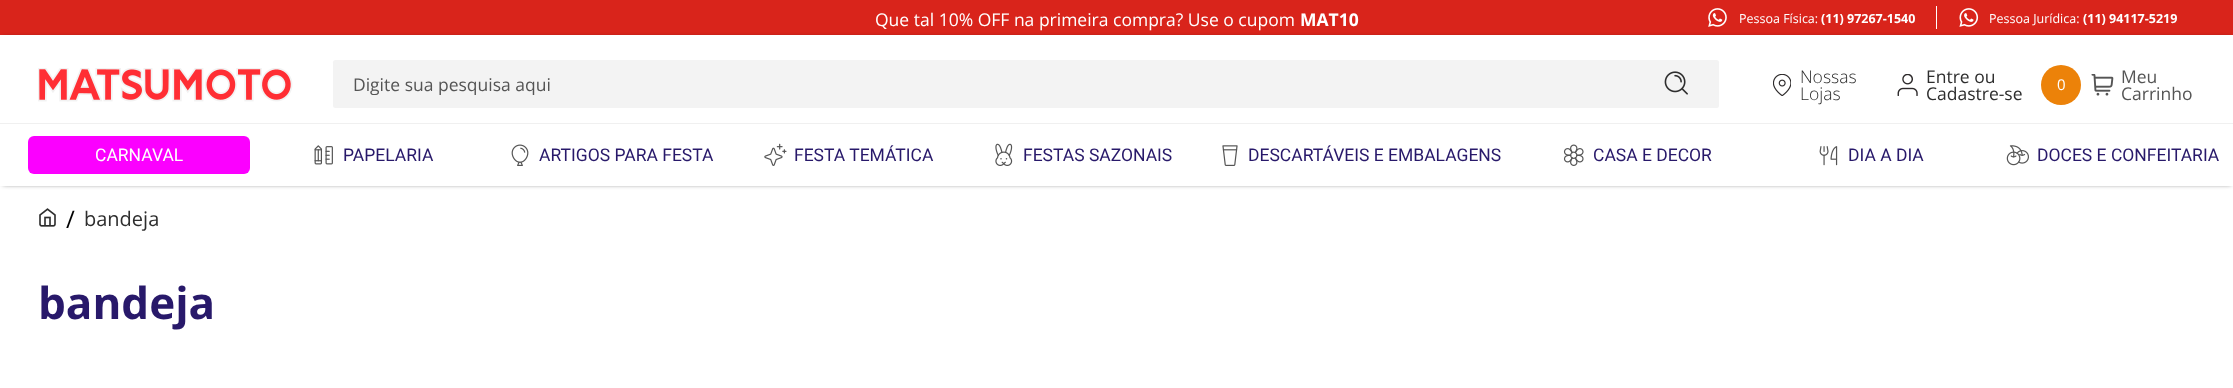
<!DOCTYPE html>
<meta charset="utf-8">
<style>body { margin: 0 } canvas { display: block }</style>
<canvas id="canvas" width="2233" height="388"></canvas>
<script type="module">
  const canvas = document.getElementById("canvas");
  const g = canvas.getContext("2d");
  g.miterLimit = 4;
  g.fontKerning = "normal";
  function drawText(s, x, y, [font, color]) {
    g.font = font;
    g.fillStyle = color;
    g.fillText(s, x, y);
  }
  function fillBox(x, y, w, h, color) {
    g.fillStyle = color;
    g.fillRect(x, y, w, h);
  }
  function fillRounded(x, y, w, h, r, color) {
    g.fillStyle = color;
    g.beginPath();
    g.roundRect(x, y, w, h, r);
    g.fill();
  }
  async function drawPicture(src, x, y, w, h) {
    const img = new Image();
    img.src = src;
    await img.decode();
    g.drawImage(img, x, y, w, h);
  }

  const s1 = ["17.5px Open Sans", "#FFFFFF"];
  const s2 = ["bold 17.5px Open Sans", "#FFFFFF"];
  const s3 = ["12.5px Open Sans", "#FFFFFF"];
  const s4 = ["bold 12.5px Open Sans", "#FFFFFF"];
  const s5 = ["17.5px Open Sans", "#555555"];
  const s6 = ["300 17.5px Open Sans", "#2E2E2E"];
  const s7 = ["17.5px Open Sans", "#2E2E2E"];
  const s8 = ["15px Open Sans", "#FFFFFF"];
  const s9 = ["17.5px Roboto", "#FFFFFF"];
  const s10 = ["17.5px Roboto", "#28196A"];
  const s11 = ["24px Open Sans", "#000000"];
  const s12 = ["20px Open Sans", "#2E2E2E"];
  const s13 = ["bold 44px Open Sans", "#28196A"];

  fillBox(0, 0, 2233, 388, "#FFFFFF");
  fillBox(0, 0, 2233, 35, "#D9241B");
  drawText("Que tal 10% OFF na primeira compra? Use o cupom", 875, 26, s1);
  drawText("MAT10", 1300, 26, s2);
  fillBox(1936, 6, 1, 23, "#FFFFFF");
  await drawPicture("pic1.png", 1708, 8, 19, 19);
  drawText("Pessoa Física:", 1739, 23, s3);
  drawText("(11) 97267-1540", 1821, 23, s4);
  await drawPicture("pic2.png", 1959, 8, 20, 19);
  drawText("Pessoa Jurídica:", 1989, 23, s3);
  drawText("(11) 94117-5219", 2083, 23, s4);
  g.save();
  g.beginPath();
  g.moveTo(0, 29);
  g.lineTo(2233, 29);
  g.lineTo(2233, 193);
  g.lineTo(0, 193);
  g.closePath();
  g.moveTo(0, 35);
  g.lineTo(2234, 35);
  g.lineTo(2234, 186);
  g.lineTo(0, 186);
  g.closePath();
  g.clip("evenodd");
  g.fillStyle = "rgba(0, 0, 0, 0.75)";
  g.filter = "blur(2.5px)";
  g.beginPath();
  g.rect(3, 38, 2228, 146);
  g.fill();
  g.filter = "none";
  g.restore();
  await drawPicture("pic3.png", 38, 68, 255, 34);
  fillRounded(333, 60, 1386, 48, 2.5, "#F3F3F3");
  g.save();
  g.beginPath();
  g.rect(353, 71, 1363, 24);
  g.clip();
  drawText("Digite sua pesquisa aqui", 353, 91, s5);
  g.restore();
  await drawPicture("pic4.png", 1664, 71, 24, 24);
  await drawPicture("pic5.png", 1773, 74, 18, 22);
  drawText("Nossas", 1800, 83, s6);
  drawText("Lojas", 1800, 100, s6);
  await drawPicture("pic6.png", 1897, 74, 21, 22);
  drawText("Entre ou", 1926, 83, s7);
  drawText("Cadastre-se", 1926, 100, s7);
  g.fillStyle = "#EC8209";
  g.beginPath();
  g.arc(2061, 85, 20, 0, Math.PI * 2);
  g.fill();
  drawText("0", 2057, 90, s8);
  await drawPicture("pic7.png", 2091, 74, 23, 22);
  drawText("Meu", 2121, 83, s5);
  drawText("Carrinho", 2121, 100, s5);
  fillBox(0, 123, 2233, 1, "#F0F0F0");
  fillRounded(28, 136, 222, 38, 6, "#FB00FF");
  drawText("CARNAVAL", 95, 161, s9);
  await drawPicture("pic8.png", 314, 145, 19, 20);
  drawText("PAPELARIA", 343, 161, s10);
  await drawPicture("pic9.png", 511, 144, 18, 22);
  drawText("ARTIGOS PARA FESTA", 539, 161, s10);
  await drawPicture("pic10.png", 764, 143, 23, 23);
  drawText("FESTA TEMÁTICA", 794, 161, s10);
  await drawPicture("pic11.png", 995, 143, 18, 23);
  drawText("FESTAS SAZONAIS", 1023, 161, s10);
  await drawPicture("pic12.png", 1222, 145, 16, 21);
  drawText("DESCARTÁVEIS E EMBALAGENS", 1248, 161, s10);
  await drawPicture("pic13.png", 1563, 144, 21, 22);
  drawText("CASA E DECOR", 1593, 161, s10);
  await drawPicture("pic14.png", 1819, 146, 19, 20);
  drawText("DIA A DIA", 1848, 161, s10);
  await drawPicture("pic15.png", 2006, 145, 23, 21);
  drawText("DOCES E CONFEITARIA", 2037, 161, s10);
  await drawPicture("pic16.png", 39, 208, 17, 19);
  drawText("/", 66, 228, s11);
  drawText("bandeja", 84, 226, s12);
  drawText("bandeja", 38, 319, s13);
</script>
